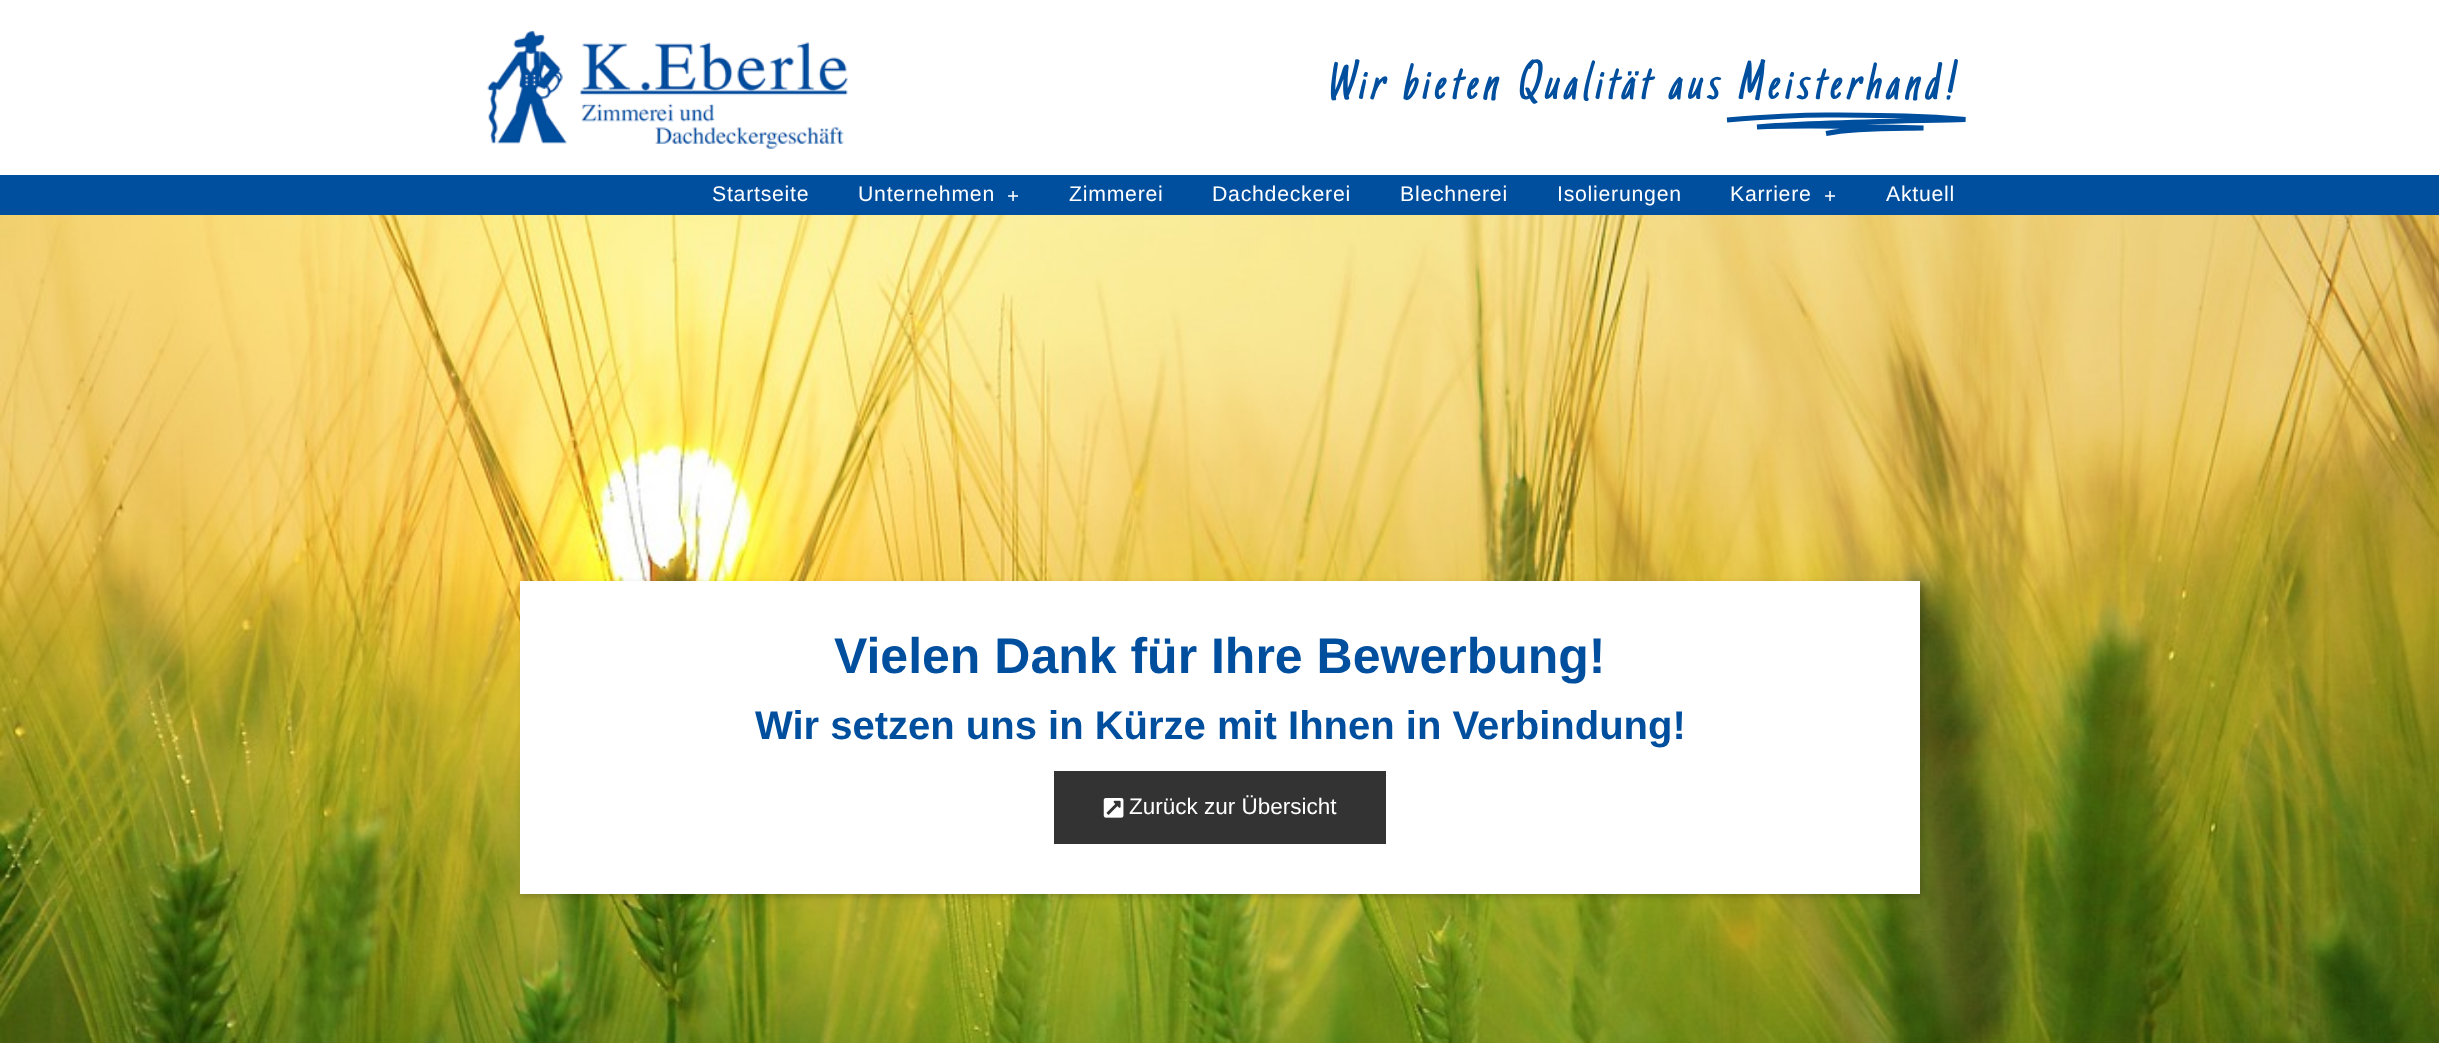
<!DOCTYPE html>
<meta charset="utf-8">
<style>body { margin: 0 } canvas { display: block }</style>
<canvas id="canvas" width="2439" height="1043"></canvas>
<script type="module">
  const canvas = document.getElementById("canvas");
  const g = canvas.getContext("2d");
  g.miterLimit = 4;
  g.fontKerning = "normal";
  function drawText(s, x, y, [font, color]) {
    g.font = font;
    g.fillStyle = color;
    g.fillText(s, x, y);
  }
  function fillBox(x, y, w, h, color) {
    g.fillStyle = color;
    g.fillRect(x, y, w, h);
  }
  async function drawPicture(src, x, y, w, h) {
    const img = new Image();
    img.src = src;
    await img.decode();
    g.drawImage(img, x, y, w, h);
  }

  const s1 = ["italic 56.25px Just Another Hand", "#004E9E"];
  const s2 = ["21.25px Liberation Sans", "#FFFFFF"];
  const s3 = ["bold 21.25px Liberation Serif", "#FFFFFF"];
  const s4 = ["bold 50px Liberation Sans", "#004E9E"];
  const s5 = ["bold 40px Liberation Sans", "#004E9E"];
  const s6 = ["22.5px Liberation Sans", "#FFFFFF"];

  fillBox(0, 0, 2439, 1043, "#FFFFFF");
  await drawPicture("pic1.png", 487, 30, 361, 119);
  g.letterSpacing = "5px";
  drawText("Wir bieten Qualität aus", 1324, 99, s1);
  g.letterSpacing = "5.25px";
  drawText("Meisterhand!", 1735, 99, s1);
  g.beginPath();
  g.moveTo(1727, 120);
  g.bezierCurveTo(1751.5, 118, 1801.5, 115, 1826, 115);
  g.bezierCurveTo(1886.5, 115.5, 1920, 115.5, 1965.5, 119.5);
  g.bezierCurveTo(1910.5, 121, 1812, 122, 1757, 127);
  g.bezierCurveTo(1798, 125, 1883, 126.5, 1923.5, 128);
  g.bezierCurveTo(1895.5, 128.5, 1855.5, 127.5, 1826, 133.5);
  g.strokeStyle = "#004E9E";
  g.lineWidth = 5;
  g.stroke();
  fillBox(0, 175, 2439, 40, "#004E9E");
  g.letterSpacing = "0.75px";
  drawText("Startseite", 712, 201, s2);
  drawText("Unternehmen", 858, 201, s2);
  drawText("+", 1007, 203, s3);
  drawText("Zimmerei", 1069, 201, s2);
  drawText("Dachdeckerei", 1212, 201, s2);
  drawText("Blechnerei", 1400, 201, s2);
  drawText("Isolierungen", 1557, 201, s2);
  drawText("Karriere", 1730, 201, s2);
  drawText("+", 1824, 203, s3);
  drawText("Aktuell", 1886, 201, s2);
  await drawPicture("pic2.png", 0, 215, 2439, 828);
  g.fillStyle = "rgba(0, 0, 0, 0.21)";
  g.filter = "blur(3px)";
  g.beginPath();
  g.rect(523, 584, 1400, 312);
  g.fill();
  g.filter = "none";
  fillBox(520, 581, 1400, 313, "#FFFFFF");
  g.letterSpacing = "0px";
  drawText("Vielen Dank für Ihre Bewerbung!", 834, 673, s4);
  drawText("Wir setzen uns in Kürze mit Ihnen in Verbindung!", 755, 739, s5);
  fillBox(1054, 771, 332, 73, "#333333");
  await drawPicture("pic3.png", 1103, 798, 21, 20);
  drawText("Zurück zur Übersicht", 1129, 814, s6);
</script>
